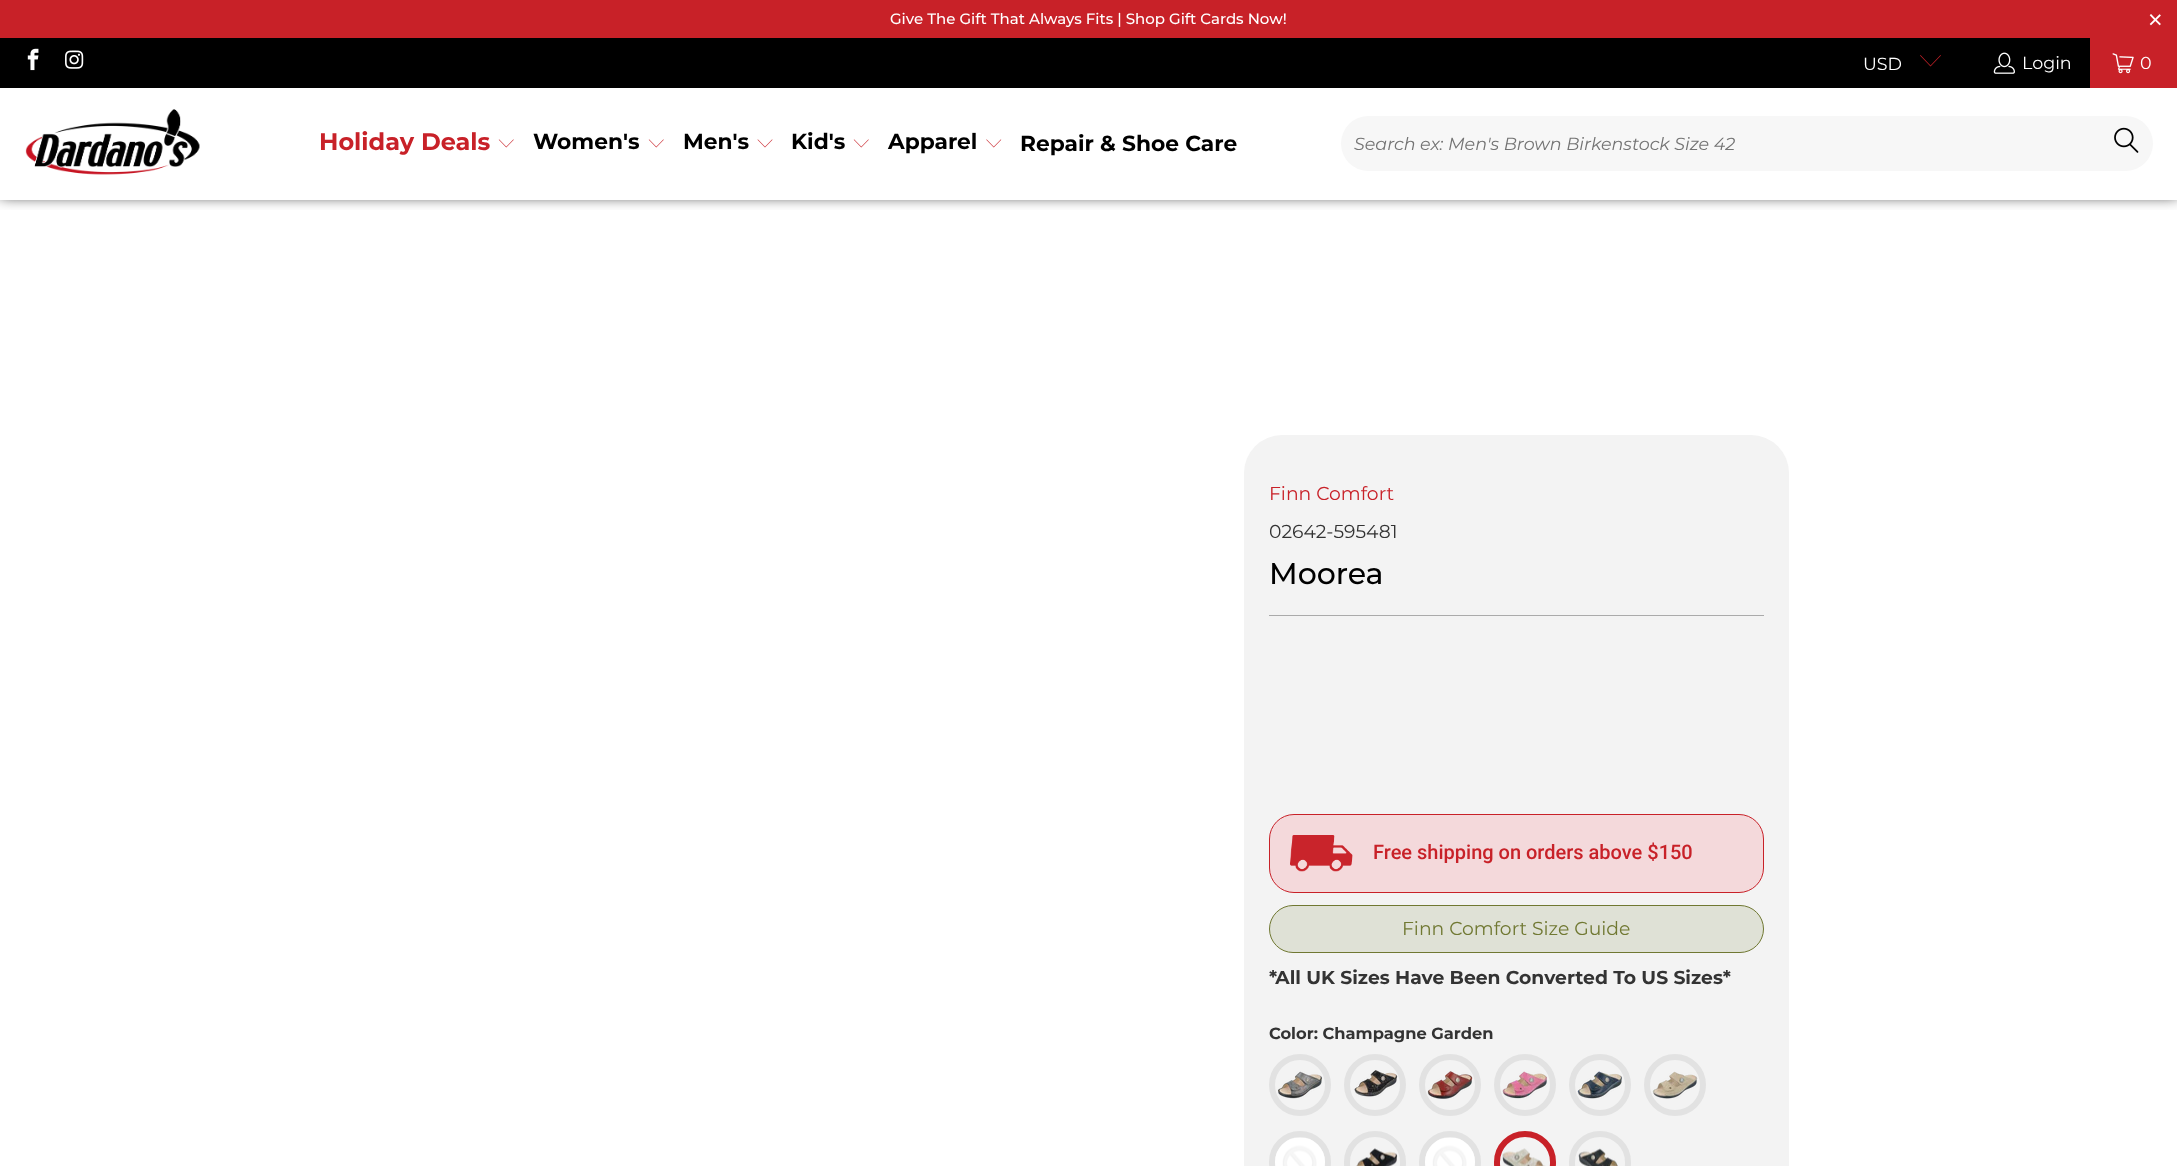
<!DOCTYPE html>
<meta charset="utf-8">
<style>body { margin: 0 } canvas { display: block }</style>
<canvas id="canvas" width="2177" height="1166"></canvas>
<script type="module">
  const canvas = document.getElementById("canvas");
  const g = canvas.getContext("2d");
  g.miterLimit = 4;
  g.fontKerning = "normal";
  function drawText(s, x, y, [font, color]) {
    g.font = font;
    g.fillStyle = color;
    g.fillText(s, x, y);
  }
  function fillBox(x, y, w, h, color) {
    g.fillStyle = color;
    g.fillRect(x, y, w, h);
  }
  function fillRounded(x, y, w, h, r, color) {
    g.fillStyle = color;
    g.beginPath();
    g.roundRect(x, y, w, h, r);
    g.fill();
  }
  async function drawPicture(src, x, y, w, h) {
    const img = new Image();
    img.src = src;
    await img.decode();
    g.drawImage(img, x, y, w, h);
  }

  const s1 = ["500 15px Montserrat", "#FFFFFF"];
  const s2 = ["25px Liberation Sans", "#FFFFFF"];
  const s3 = ["17.5px Montserrat", "#FFFFFF"];
  const s4 = ["bold 24px Montserrat", "#C82128"];
  const s5 = ["bold 21.75px Montserrat", "#000000"];
  const s6 = ["italic 17.5px Montserrat", "#737373"];
  const s7 = ["18.75px Montserrat", "#C82128"];
  const s8 = ["18.75px Montserrat", "#333333"];
  const s9 = ["500 30px Montserrat", "#000000"];
  const s10 = ["500 20px Roboto", "#C82128"];
  const s11 = ["18.75px Montserrat", "#707832"];
  const s12 = ["bold 18.75px Montserrat", "#333333"];
  const s13 = ["bold 16.25px Montserrat", "#333333"];

  fillBox(0, 0, 2177, 1166, "#FFFFFF");
  fillBox(0, 0, 2177, 38, "#C82128");
  drawText("Give The Gift That Always Fits | Shop Gift Cards Now!", 890, 24, s1);
  drawText("×", 2148, 28, s2);
  g.save();
  g.beginPath();
  g.rect(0, 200, 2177, 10);
  g.clip();
  g.fillStyle = "#000000";
  g.filter = "blur(7.5px)";
  g.beginPath();
  g.rect(0, 83, 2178, 112);
  g.fill();
  g.filter = "none";
  g.restore();
  fillBox(0, 38, 2090, 50, "#000000");
  await drawPicture("pic1.png", 27, 48, 12, 23);
  await drawPicture("pic2.png", 65, 50, 19, 19);
  drawText("USD", 1863, 70, s3);
  g.fillStyle = "#C82128";
  g.beginPath();
  g.moveTo(1930.5, 66.5);
  g.lineTo(1920, 55.5);
  g.lineTo(1920.5, 55);
  g.lineTo(1930.5, 65.5);
  g.lineTo(1940.5, 55);
  g.lineTo(1941, 55.5);
  g.closePath();
  g.fill();
  await drawPicture("pic3.png", 1993, 52, 22, 22);
  drawText("Login", 2022, 69, s3);
  fillBox(2090, 38, 87, 50, "#C82128");
  await drawPicture("pic4.png", 2112, 53, 22, 21);
  drawText("0", 2140, 69, s3);
  await drawPicture("pic5.png", 25, 109, 175, 66);
  drawText("Holiday Deals", 319, 150, s4);
  await drawPicture("pic6.png", 498, 139, 16, 9);
  drawText("Women's", 533, 149, s5);
  await drawPicture("pic6.png", 648, 139, 16, 9);
  drawText("Men's", 683, 149, s5);
  await drawPicture("pic7.png", 757, 139, 16, 9);
  drawText("Kid's", 791, 149, s5);
  await drawPicture("pic6.png", 853, 139, 16, 9);
  drawText("Apparel", 888, 149, s5);
  await drawPicture("pic8.png", 986, 139, 16, 9);
  drawText("Repair & Shoe Care", 1020, 151, s5);
  fillRounded(1341, 116, 812, 55, 27.5, "#F7F7F7");
  drawText("Search ex: Men's Brown Birkenstock Size 42", 1354, 150, s6);
  await drawPicture("pic9.png", 2114, 127, 25, 26);
  fillRounded(1244, 435, 545, 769, 38, "#F3F3F3");
  drawText("Finn Comfort", 1269, 500, s7);
  drawText("02642-595481", 1269, 538, s8);
  drawText("Moorea", 1269, 584, s9);
  fillBox(1269, 615, 495, 1, "#AAAAAA");
  g.fillStyle = "#F4D9DB";
  g.beginPath();
  g.roundRect(1269.5, 814.5, 494, 78, 24.5);
  g.fill();
  g.strokeStyle = "#C82128";
  g.stroke();
  await drawPicture("pic10.png", 1290, 835, 63, 37);
  drawText("Free shipping on orders above $150", 1373, 859, s10);
  g.fillStyle = "#DFE1D6";
  g.beginPath();
  g.roundRect(1269.5, 905.5, 494, 47, 23.5);
  g.fill();
  g.strokeStyle = "#707832";
  g.stroke();
  drawText("Finn Comfort Size Guide", 1402, 935, s11);
  drawText("*All UK Sizes Have Been Converted To US Sizes*", 1269, 984, s12);
  drawText("Color: Champagne Garden", 1269, 1039, s13);
  g.beginPath();
  g.arc(1300, 1085, 28, 0, Math.PI * 2);
  g.strokeStyle = "#E2E2E2";
  g.lineWidth = 6;
  g.stroke();
  await drawPicture("pic11.png", 1278, 1071, 44, 28);
  g.beginPath();
  g.arc(1375, 1085, 28, 0, Math.PI * 2);
  g.stroke();
  await drawPicture("pic12.png", 1354, 1070, 44, 27);
  g.beginPath();
  g.arc(1450, 1085, 28, 0, Math.PI * 2);
  g.stroke();
  await drawPicture("pic13.png", 1427, 1071, 46, 28);
  g.beginPath();
  g.arc(1525, 1085, 28, 0, Math.PI * 2);
  g.stroke();
  await drawPicture("pic14.png", 1502, 1071, 45, 28);
  g.beginPath();
  g.arc(1600, 1085, 28, 0, Math.PI * 2);
  g.stroke();
  await drawPicture("pic15.png", 1577, 1071, 45, 28);
  g.beginPath();
  g.arc(1675, 1085, 28, 0, Math.PI * 2);
  g.stroke();
  await drawPicture("pic16.png", 1652, 1071, 46, 28);
  g.beginPath();
  g.arc(1300, 1162, 28, 0, Math.PI * 2);
  g.stroke();
  await drawPicture("pic17.png", 1275, 1138, 50, 28);
  g.beginPath();
  g.roundRect(1347, 1134, 56, 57, 28);
  g.stroke();
  await drawPicture("pic18.png", 1356, 1148, 42, 18);
  g.beginPath();
  g.arc(1450, 1162, 28, 0, Math.PI * 2);
  g.stroke();
  await drawPicture("pic19.png", 1425, 1138, 50, 28);
  g.beginPath();
  g.roundRect(1497, 1134, 56, 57, 28);
  g.strokeStyle = "#C82128";
  g.stroke();
  await drawPicture("pic20.png", 1502, 1148, 44, 18);
  g.beginPath();
  g.roundRect(1572, 1134, 56, 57, 28);
  g.strokeStyle = "#E2E2E2";
  g.stroke();
  await drawPicture("pic21.png", 1578, 1148, 40, 18);
</script>
